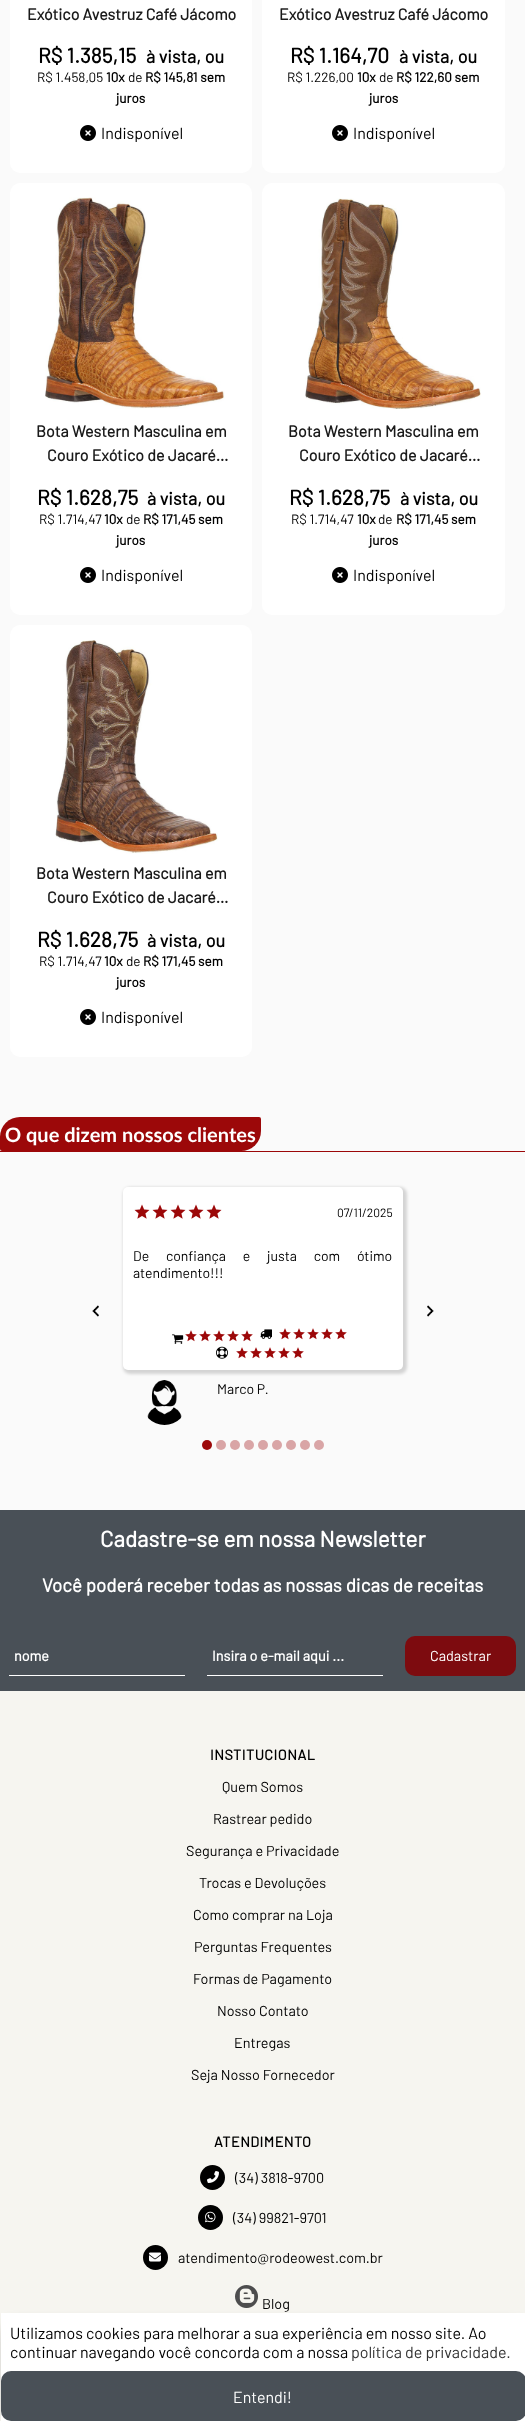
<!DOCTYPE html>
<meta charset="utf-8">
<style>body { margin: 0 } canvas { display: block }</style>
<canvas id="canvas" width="525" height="2421"></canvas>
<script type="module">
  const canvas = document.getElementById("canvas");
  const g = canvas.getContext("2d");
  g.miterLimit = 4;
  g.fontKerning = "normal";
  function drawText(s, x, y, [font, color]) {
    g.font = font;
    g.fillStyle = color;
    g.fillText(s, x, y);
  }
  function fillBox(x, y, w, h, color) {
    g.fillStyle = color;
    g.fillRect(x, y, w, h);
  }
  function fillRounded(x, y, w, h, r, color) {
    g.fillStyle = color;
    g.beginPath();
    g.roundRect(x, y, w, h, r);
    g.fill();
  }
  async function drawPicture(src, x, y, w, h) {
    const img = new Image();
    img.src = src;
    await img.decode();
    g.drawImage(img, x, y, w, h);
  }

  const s1 = ["bold 16px Barlow", "#1A1A1A"];
  const s2 = ["bold 21px Barlow", "#000000"];
  const s3 = ["bold 18px Barlow", "#000000"];
  const s4 = ["13.5px Barlow", "#000000"];
  const s5 = ["bold 13.5px Barlow", "#000000"];
  const s6 = ["16px Barlow", "#000000"];
  const s7 = ["bold 20px Lato", "#FFFFFF"];
  const s8 = ["12px Barlow", "#000000"];
  const s9 = ["14px Barlow", "#000000"];
  const s10 = ["bold 22.4px Barlow", "#FFFFFF"];
  const s11 = ["bold 18.75px Barlow", "#FFFFFF"];
  const s12 = ["bold 14.4px Barlow", "#FFFFFF"];
  const s13 = ["14.4px Barlow", "#FFFFFF"];
  const s14 = ["bold 14.4px Barlow", "#000000"];
  const s15 = ["14.4px Barlow", "#000000"];
  const s16 = ["16px Barlow", "#333333"];
  const s17 = ["16px Barlow", "#FFFFFF"];

  fillBox(0, 0, 525, 2421, "#FAFAFA");
  fillRounded(10, -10, 242, 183, 10, "#FFFFFF");
  drawText("Exótico Avestruz Café Jácomo", 27, 20, s1);
  drawText("R$ 1.385,15", 38, 63, s2);
  drawText("à vista, ou", 146, 63, s3);
  drawText("R$ 1.458,05", 37, 82, s4);
  drawText("10x", 106, 82, s5);
  drawText("de", 128, 82, s4);
  drawText("R$ 145,81 sem", 145, 82, s5);
  drawText("juros", 116, 103, s5);
  await drawPicture("pic1.png", 80, 125, 16, 16);
  drawText("Indisponível", 101, 139, s6);
  fillRounded(262, -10, 243, 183, 10, "#FFFFFF");
  drawText("Exótico Avestruz Café Jácomo", 279, 20, s1);
  drawText("R$ 1.164,70", 290, 63, s2);
  drawText("à vista, ou", 399, 63, s3);
  drawText("R$ 1.226,00", 287, 82, s4);
  drawText("10x", 357, 82, s5);
  drawText("de", 379, 82, s4);
  drawText("R$ 122,60 sem", 396, 82, s5);
  drawText("juros", 369, 103, s5);
  await drawPicture("pic1.png", 332, 125, 16, 16);
  drawText("Indisponível", 353, 139, s6);
  fillRounded(10, 183, 242, 432, 10, "#FFFFFF");
  await drawPicture("pic2.png", 45, 197, 180, 212);
  drawText("Bota Western Masculina em", 36, 437, s1);
  drawText("Couro Exótico de Jacaré…", 47, 461, s1);
  drawText("R$ 1.628,75", 37, 505, s2);
  drawText("à vista, ou", 147, 505, s3);
  drawText("R$ 1.714,47", 39, 524, s4);
  drawText("10x", 104, 524, s5);
  drawText("de", 126, 524, s4);
  drawText("R$ 171,45 sem", 143, 524, s5);
  drawText("juros", 116, 545, s5);
  await drawPicture("pic1.png", 80, 567, 16, 16);
  drawText("Indisponível", 101, 581, s6);
  fillRounded(262, 183, 243, 432, 10, "#FFFFFF");
  await drawPicture("pic3.png", 305, 198, 176, 211);
  drawText("Bota Western Masculina em", 288, 437, s1);
  drawText("Couro Exótico de Jacaré…", 299, 461, s1);
  drawText("R$ 1.628,75", 289, 505, s2);
  drawText("à vista, ou", 400, 505, s3);
  drawText("R$ 1.714,47", 291, 524, s4);
  drawText("10x", 357, 524, s5);
  drawText("de", 378, 524, s4);
  drawText("R$ 171,45 sem", 396, 524, s5);
  drawText("juros", 369, 545, s5);
  await drawPicture("pic1.png", 332, 567, 16, 16);
  drawText("Indisponível", 353, 581, s6);
  fillRounded(10, 625, 242, 432, 10, "#FFFFFF");
  await drawPicture("pic4.png", 55, 640, 163, 214);
  drawText("Bota Western Masculina em", 36, 879, s1);
  drawText("Couro Exótico de Jacaré…", 47, 903, s1);
  drawText("R$ 1.628,75", 37, 947, s2);
  drawText("à vista, ou", 147, 947, s3);
  drawText("R$ 1.714,47", 39, 966, s4);
  drawText("10x", 104, 966, s5);
  drawText("de", 126, 966, s4);
  drawText("R$ 171,45 sem", 143, 966, s5);
  drawText("juros", 116, 987, s5);
  await drawPicture("pic1.png", 80, 1009, 16, 16);
  drawText("Indisponível", 101, 1023, s6);
  fillBox(0, 1151, 525, 1, "#9C0809");
  g.beginPath();
  g.roundRect(0, 1117, 261, 34, [20, 2, 20, 2]);
  g.fill();
  drawText("O que dizem nossos clientes", 5, 1142, s7);
  await drawPicture("pic5.png", 92, 1305, 7, 12);
  g.fillStyle = "rgba(0, 0, 0, 0.15)";
  g.filter = "blur(1.5px)";
  g.beginPath();
  g.roundRect(123, 1187, 284, 187, 7);
  g.fill();
  g.filter = "none";
  fillRounded(123, 1187, 280, 183, 5, "#FFFFFF");
  await drawPicture("pic6.png", 134, 1204, 16, 15);
  await drawPicture("pic6.png", 152, 1204, 16, 15);
  await drawPicture("pic6.png", 170, 1204, 16, 15);
  await drawPicture("pic6.png", 188, 1204, 16, 15);
  await drawPicture("pic6.png", 206, 1204, 16, 15);
  drawText("07/11/2025", 337, 1217, s8);
  g.wordSpacing = "14px";
  drawText("De confiança e justa com ótimo", 133, 1261, s9);
  g.wordSpacing = "0px";
  drawText("atendimento!!!", 133, 1278, s9);
  await drawPicture("pic7.png", 172, 1334, 12, 10);
  await drawPicture("pic8.png", 185, 1330, 12, 12);
  await drawPicture("pic8.png", 199, 1330, 12, 12);
  await drawPicture("pic8.png", 213, 1330, 12, 12);
  await drawPicture("pic8.png", 227, 1330, 12, 12);
  await drawPicture("pic8.png", 241, 1330, 12, 12);
  await drawPicture("pic9.png", 260, 1329, 12, 10);
  await drawPicture("pic8.png", 279, 1328, 12, 12);
  await drawPicture("pic8.png", 293, 1328, 12, 12);
  await drawPicture("pic8.png", 307, 1328, 12, 12);
  await drawPicture("pic8.png", 321, 1328, 12, 12);
  await drawPicture("pic8.png", 335, 1328, 12, 12);
  await drawPicture("pic10.png", 216, 1346, 12, 13);
  await drawPicture("pic8.png", 236, 1347, 12, 12);
  await drawPicture("pic8.png", 250, 1347, 12, 12);
  await drawPicture("pic8.png", 264, 1347, 12, 12);
  await drawPicture("pic8.png", 278, 1347, 12, 12);
  await drawPicture("pic8.png", 292, 1347, 12, 12);
  await drawPicture("pic11.png", 147, 1380, 35, 45);
  drawText("Marco P.", 217, 1394, s9);
  await drawPicture("pic12.png", 427, 1305, 7, 12);
  g.fillStyle = "#9C0809";
  g.beginPath();
  g.arc(207, 1445, 5, 0, Math.PI * 2);
  g.fill();
  g.fillStyle = "#D9A5A6";
  g.beginPath();
  g.arc(221, 1445, 5, 0, Math.PI * 2);
  g.fill();
  g.beginPath();
  g.arc(235, 1445, 5, 0, Math.PI * 2);
  g.fill();
  g.beginPath();
  g.arc(249, 1445, 5, 0, Math.PI * 2);
  g.fill();
  g.beginPath();
  g.arc(263, 1445, 5, 0, Math.PI * 2);
  g.fill();
  g.beginPath();
  g.arc(277, 1445, 5, 0, Math.PI * 2);
  g.fill();
  g.beginPath();
  g.arc(291, 1445, 5, 0, Math.PI * 2);
  g.fill();
  g.beginPath();
  g.arc(305, 1445, 5, 0, Math.PI * 2);
  g.fill();
  g.beginPath();
  g.arc(319, 1445, 5, 0, Math.PI * 2);
  g.fill();
  fillBox(0, 1510, 525, 181, "#495057");
  drawText("Cadastre-se em nossa Newsletter", 100, 1547, s10);
  drawText("Você poderá receber todas as nossas dicas de receitas", 42, 1592, s11);
  fillBox(9, 1675, 176, 1, "#FFFFFF");
  drawText("nome", 14, 1661, s12);
  fillBox(207, 1675, 176, 1, "#FFFFFF");
  drawText("Insira o e-mail aqui ...", 212, 1661, s12);
  fillRounded(405, 1636, 111, 40, 10, "#7D0B0F");
  drawText("Cadastrar", 430, 1661, s13);
  fillBox(0, 1691, 525, 730, "#F6F5F0");
  g.letterSpacing = "0.5px";
  drawText("INSTITUCIONAL", 210, 1760, s14);
  g.letterSpacing = "0px";
  drawText("Quem Somos", 222, 1792, s15);
  drawText("Rastrear pedido", 213, 1824, s15);
  drawText("Segurança e Privacidade", 186, 1856, s15);
  drawText("Trocas e Devoluções", 199, 1888, s15);
  drawText("Como comprar na Loja", 193, 1920, s15);
  drawText("Perguntas Frequentes", 194, 1952, s15);
  drawText("Formas de Pagamento", 193, 1984, s15);
  drawText("Nosso Contato", 217, 2016, s15);
  drawText("Entregas", 234, 2048, s15);
  drawText("Seja Nosso Fornecedor", 191, 2080, s15);
  g.letterSpacing = "0.5px";
  drawText("ATENDIMENTO", 214, 2147, s14);
  g.beginPath();
  g.arc(212.5, 2177.5, 12.5, 0, Math.PI * 2);
  g.fill();
  await drawPicture("pic13.png", 207, 2171, 12, 12);
  g.letterSpacing = "0px";
  drawText("(34) 3818-9700", 235, 2183, s15);
  g.beginPath();
  g.arc(210.5, 2217.5, 12.5, 0, Math.PI * 2);
  g.fill();
  await drawPicture("pic14.png", 205, 2211, 11, 12);
  drawText("(34) 99821-9701", 233, 2223, s15);
  g.beginPath();
  g.arc(155.5, 2257.5, 12.5, 0, Math.PI * 2);
  g.fill();
  await drawPicture("pic15.png", 149, 2252, 12, 10);
  drawText("atendimento@rodeowest.com.br", 178, 2263, s15);
  await drawPicture("pic16.png", 235, 2285, 23, 23);
  drawText("Blog", 262, 2309, s15);
  g.filter = "blur(7.5px)";
  g.beginPath();
  g.rect(11, 2328, 505, 88);
  g.fill();
  g.filter = "none";
  fillBox(1, 2313, 524, 108, "#FFFFFF");
  drawText("Utilizamos cookies para melhorar a sua experiência em nosso site. Ao", 10, 2339, s6);
  drawText("continuar navegando você concorda com a nossa", 10, 2358, s6);
  drawText("política de privacidade.", 351, 2358, s16);
  fillRounded(1, 2371, 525, 50, 10, "#495057");
  drawText("Entendi!", 233, 2403, s17);
</script>
